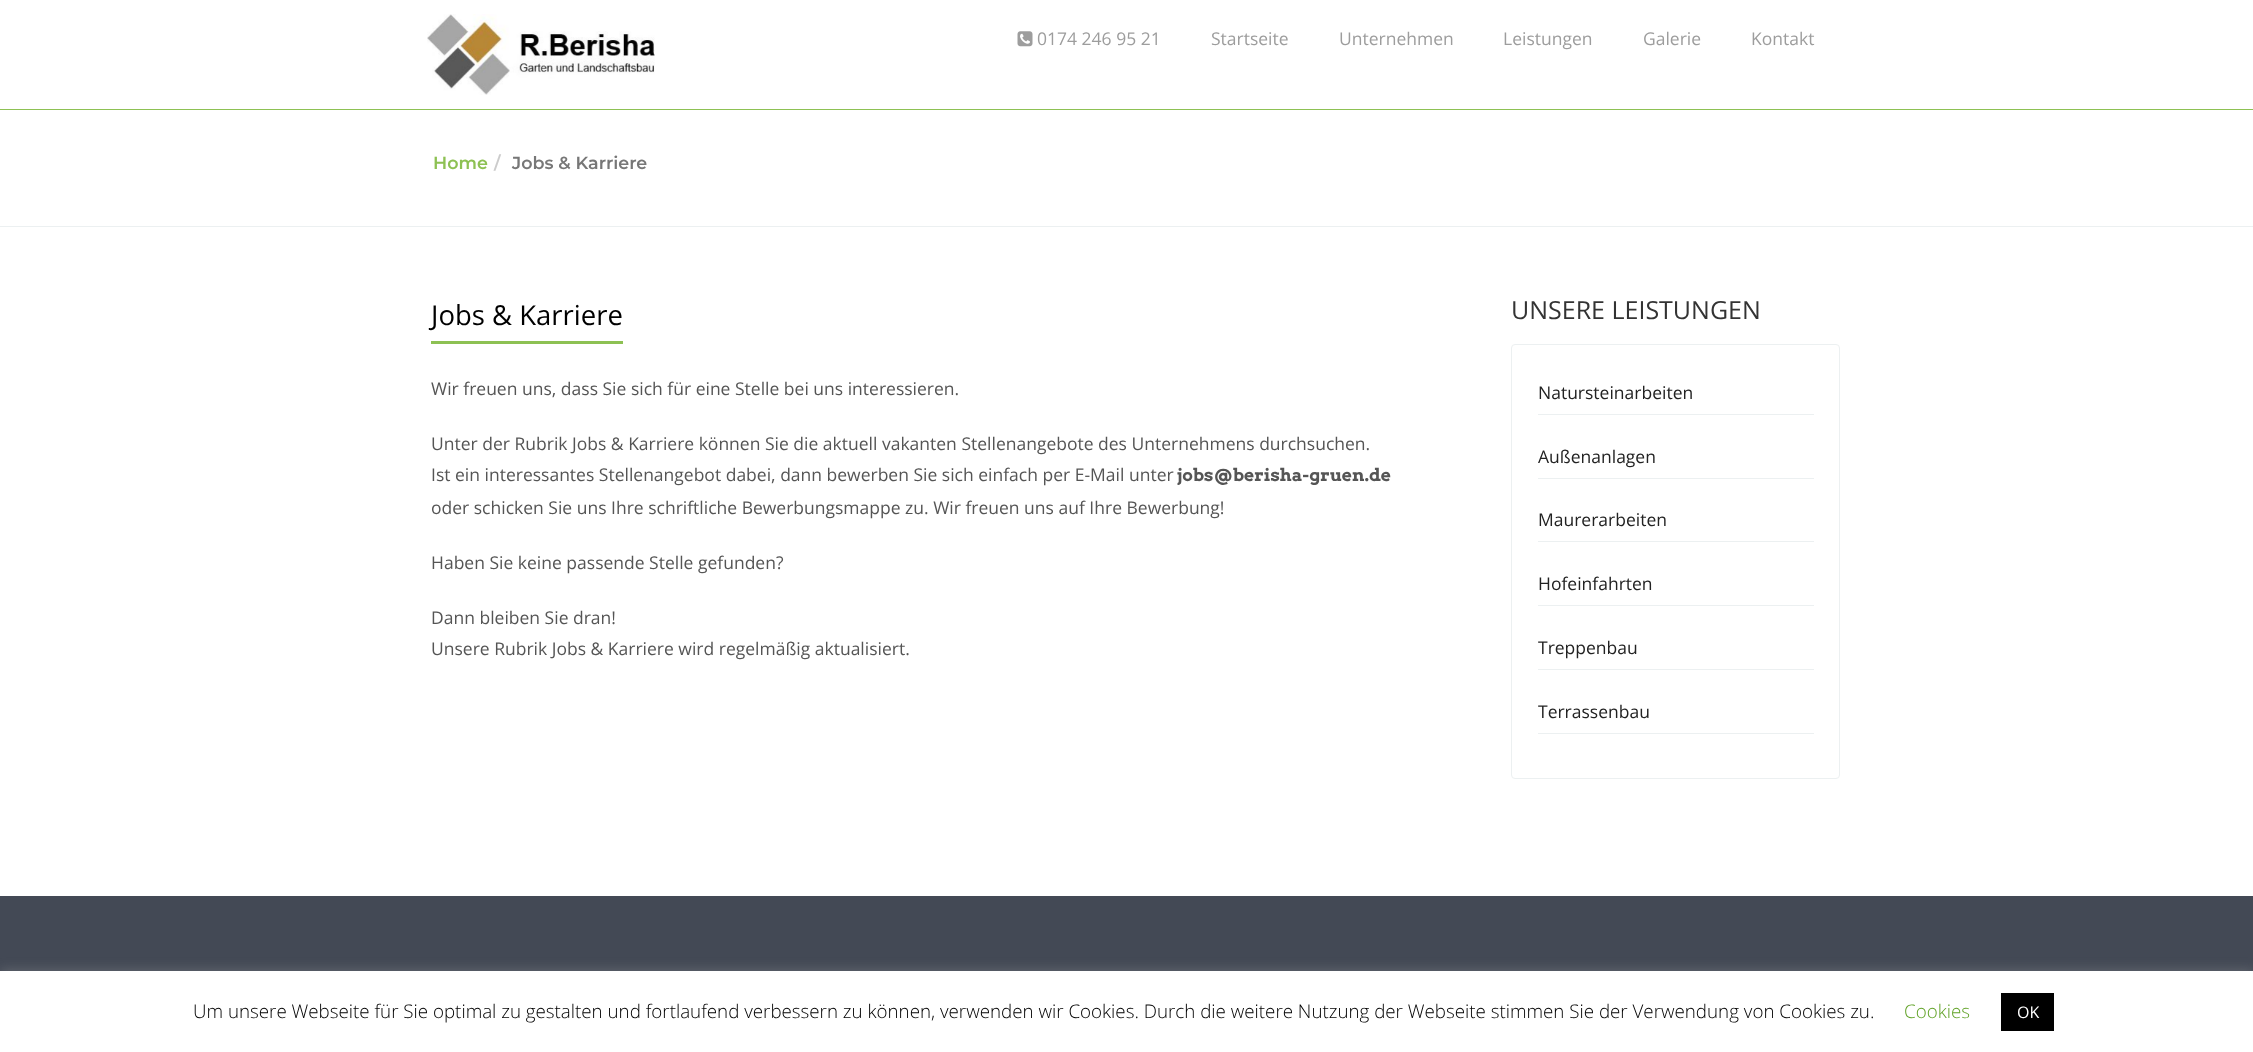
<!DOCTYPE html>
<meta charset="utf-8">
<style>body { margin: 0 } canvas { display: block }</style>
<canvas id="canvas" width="2253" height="1052"></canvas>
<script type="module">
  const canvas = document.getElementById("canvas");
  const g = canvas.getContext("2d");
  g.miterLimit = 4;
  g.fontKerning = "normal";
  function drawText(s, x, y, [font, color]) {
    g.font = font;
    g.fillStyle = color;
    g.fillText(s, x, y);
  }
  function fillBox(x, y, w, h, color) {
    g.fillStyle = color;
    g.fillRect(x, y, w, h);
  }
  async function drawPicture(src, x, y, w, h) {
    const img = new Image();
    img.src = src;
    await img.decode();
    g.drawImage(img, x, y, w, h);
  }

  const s1 = ["17.5px Open Sans", "#9D9D9D"];
  const s2 = ["600 17.5px Montserrat", "#8DC153"];
  const s3 = ["600 17.5px Montserrat", "#CCCCCC"];
  const s4 = ["600 17.5px Montserrat", "#777777"];
  const s5 = ["27.5px Open Sans", "#000000"];
  const s6 = ["17.5px Open Sans", "#555555"];
  const s7 = ["bold 17.5px Arvo", "#555555"];
  const s8 = ["25px Open Sans", "#333333"];
  const s9 = ["17.5px Open Sans", "#222222"];
  const s10 = ["300 18.75px Open Sans", "#000000"];
  const s11 = ["300 18.75px Open Sans", "#62A329"];
  const s12 = ["16px Open Sans", "#FFFFFF"];

  fillBox(0, 0, 2253, 1052, "#FFFFFF");
  fillBox(0, 109, 2253, 1, "#8DC153");
  await drawPicture("pic1.png", 427, 14, 228, 81);
  await drawPicture("pic2.png", 1017, 31, 16, 16);
  drawText("0174 246 95 21", 1037, 45, s1);
  drawText("Startseite", 1211, 45, s1);
  drawText("Unternehmen", 1339, 45, s1);
  drawText("Leistungen", 1503, 45, s1);
  drawText("Galerie", 1643, 45, s1);
  drawText("Kontakt", 1751, 45, s1);
  fillBox(0, 226, 2253, 1, "#ECF0F1");
  drawText("Home", 433, 169, s2);
  drawText("/", 494, 169, s3);
  drawText("Jobs & Karriere", 512, 169, s4);
  fillBox(431, 341, 192, 3, "#8DC153");
  drawText("Jobs & Karriere", 431, 325, s5);
  drawText("Wir freuen uns, dass Sie sich für eine Stelle bei uns interessieren.", 431, 395, s6);
  drawText("Unter der Rubrik Jobs & Karriere können Sie die aktuell vakanten Stellenangebote des Unternehmens durchsuchen.", 431, 450, s6);
  drawText("Ist ein interessantes Stellenangebot dabei, dann bewerben Sie sich einfach per E-Mail unter", 431, 481, s6);
  drawText("jobs@berisha-gruen.de", 1177, 481, s7);
  drawText("oder schicken Sie uns Ihre schriftliche Bewerbungsmappe zu. Wir freuen uns auf Ihre Bewerbung!", 431, 514, s6);
  drawText("Haben Sie keine passende Stelle gefunden?", 431, 569, s6);
  drawText("Dann bleiben Sie dran!", 431, 624, s6);
  drawText("Unsere Rubrik Jobs & Karriere wird regelmäßig aktualisiert.", 431, 655, s6);
  drawText("UNSERE LEISTUNGEN", 1511, 319, s8);
  g.beginPath();
  g.roundRect(1511.5, 344.5, 328, 434, 3.5);
  g.strokeStyle = "#ECF0F1";
  g.stroke();
  fillBox(1538, 414, 276, 1, "#ECF0F1");
  drawText("Natursteinarbeiten", 1538, 399, s9);
  fillBox(1538, 478, 276, 1, "#ECF0F1");
  drawText("Außenanlagen", 1538, 463, s9);
  fillBox(1538, 541, 276, 1, "#ECF0F1");
  drawText("Maurerarbeiten", 1538, 526, s9);
  fillBox(1538, 605, 276, 1, "#ECF0F1");
  drawText("Hofeinfahrten", 1538, 590, s9);
  fillBox(1538, 669, 276, 1, "#ECF0F1");
  drawText("Treppenbau", 1538, 654, s9);
  fillBox(1538, 733, 276, 1, "#ECF0F1");
  drawText("Terrassenbau", 1538, 718, s9);
  fillBox(0, 896, 2253, 75, "#434955");
  g.fillStyle = "rgba(172, 171, 171, 0.3)";
  g.filter = "blur(6px)";
  g.beginPath();
  g.rect(0, 970, 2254, 81);
  g.fill();
  g.filter = "none";
  fillBox(0, 971, 2253, 81, "#FFFFFF");
  drawText("Um unsere Webseite für Sie optimal zu gestalten und fortlaufend verbessern zu können, verwenden wir Cookies. Durch die weitere Nutzung der Webseite stimmen Sie der Verwendung von Cookies zu.", 193, 1018, s10);
  drawText("Cookies", 1904, 1018, s11);
  fillBox(2001, 993, 53, 38, "#000000");
  drawText("OK", 2017, 1018, s12);
</script>
